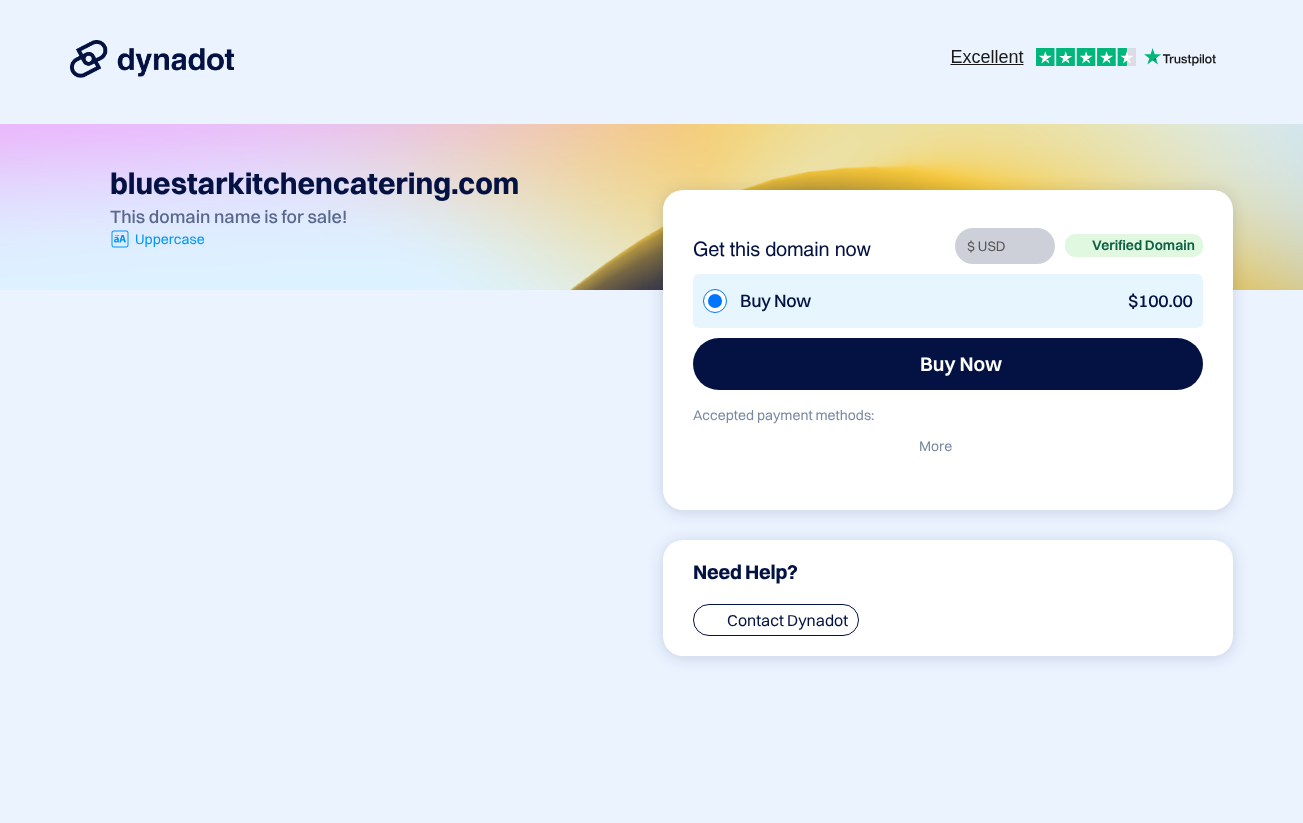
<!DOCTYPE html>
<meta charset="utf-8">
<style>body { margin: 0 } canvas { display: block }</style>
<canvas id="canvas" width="1303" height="823"></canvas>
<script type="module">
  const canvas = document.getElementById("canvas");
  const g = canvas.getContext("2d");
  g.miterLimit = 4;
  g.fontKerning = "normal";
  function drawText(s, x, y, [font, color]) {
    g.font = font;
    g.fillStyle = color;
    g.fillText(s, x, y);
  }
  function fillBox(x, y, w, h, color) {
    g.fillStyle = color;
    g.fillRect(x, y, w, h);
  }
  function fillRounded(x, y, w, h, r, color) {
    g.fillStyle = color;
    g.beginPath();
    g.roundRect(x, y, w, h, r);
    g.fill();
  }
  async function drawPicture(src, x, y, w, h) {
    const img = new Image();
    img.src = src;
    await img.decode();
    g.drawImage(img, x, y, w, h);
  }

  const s1 = ["bold 30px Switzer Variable", "#031242"];
  const s2 = ["500 18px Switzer", "#5B688D"];
  const s3 = ["14px Switzer Variable", "#0096F7"];
  const s4 = ["20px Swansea", "#031242"];
  const s5 = ["14px Switzer Variable", "#555555"];
  const s6 = ["600 14px Switzer", "#0D6245"];
  const s7 = ["500 18px Switzer", "#031242"];
  const s8 = ["600 20px Switzer", "#FFFFFF"];
  const s9 = ["14px Switzer Variable", "#7989A3"];
  const s10 = ["bold 20px Switzer Variable", "#031242"];
  const s11 = ["16px Switzer Variable", "#031242"];

  fillBox(0, 0, 1303, 823, "#EBF3FF");
  await drawPicture("pic1.png", 70, 40, 164, 38);
  await drawPicture("pic2.png", 950, 48, 266, 18);
  await drawPicture("pic3.png", 0, 124, 1303, 166);
  drawText("bluestarkitchencatering.com", 110, 194, s1);
  drawText("This domain name is for sale!", 110, 223, s2);
  await drawPicture("pic4.png", 111, 230, 18, 18);
  drawText("Uppercase", 135, 244, s3);
  g.fillStyle = "rgba(3, 18, 66, 0.15)";
  g.filter = "blur(7.5px)";
  g.beginPath();
  g.roundRect(663, 192, 570, 320, 20);
  g.fill();
  g.filter = "none";
  fillRounded(663, 190, 570, 320, 20, "#FFFFFF");
  g.letterSpacing = "-0.25px";
  drawText("Get this domain now", 693, 256, s4);
  fillRounded(955, 228, 100, 36, 18, "#CDD0D9");
  g.letterSpacing = "0px";
  drawText("$ USD", 967, 251, s5);
  fillRounded(1065, 234, 138, 23, 10, "#E0F8DF");
  drawText("Verified Domain", 1092, 250, s6);
  fillRounded(693, 274, 510, 54, 6, "#E6F5FE");
  g.fillStyle = "#FFFFFF";
  g.beginPath();
  g.arc(715, 301, 11.5, 0, Math.PI * 2);
  g.fill();
  g.strokeStyle = "#0075FF";
  g.stroke();
  g.fillStyle = "#0075FF";
  g.beginPath();
  g.arc(715, 301, 7, 0, Math.PI * 2);
  g.fill();
  g.letterSpacing = "-0.25px";
  drawText("Buy Now", 740, 307, s7);
  drawText("$100.00", 1128, 307, s7);
  fillRounded(693, 338, 510, 52, 26, "#031242");
  g.letterSpacing = "0px";
  drawText("Buy Now", 920, 371, s8);
  drawText("Accepted payment methods:", 693, 420, s9);
  drawText("More", 919, 451, s9);
  g.fillStyle = "rgba(3, 18, 66, 0.15)";
  g.filter = "blur(7.5px)";
  g.beginPath();
  g.roundRect(663, 542, 570, 116, 20);
  g.fill();
  g.filter = "none";
  fillRounded(663, 540, 570, 116, 20, "#FFFFFF");
  g.letterSpacing = "-0.25px";
  drawText("Need Help?", 693, 579, s10);
  g.beginPath();
  g.roundRect(693.5, 604.5, 165, 31, 15.5);
  g.strokeStyle = "#031242";
  g.stroke();
  g.letterSpacing = "0px";
  drawText("Contact Dynadot", 727, 626, s11);
</script>
